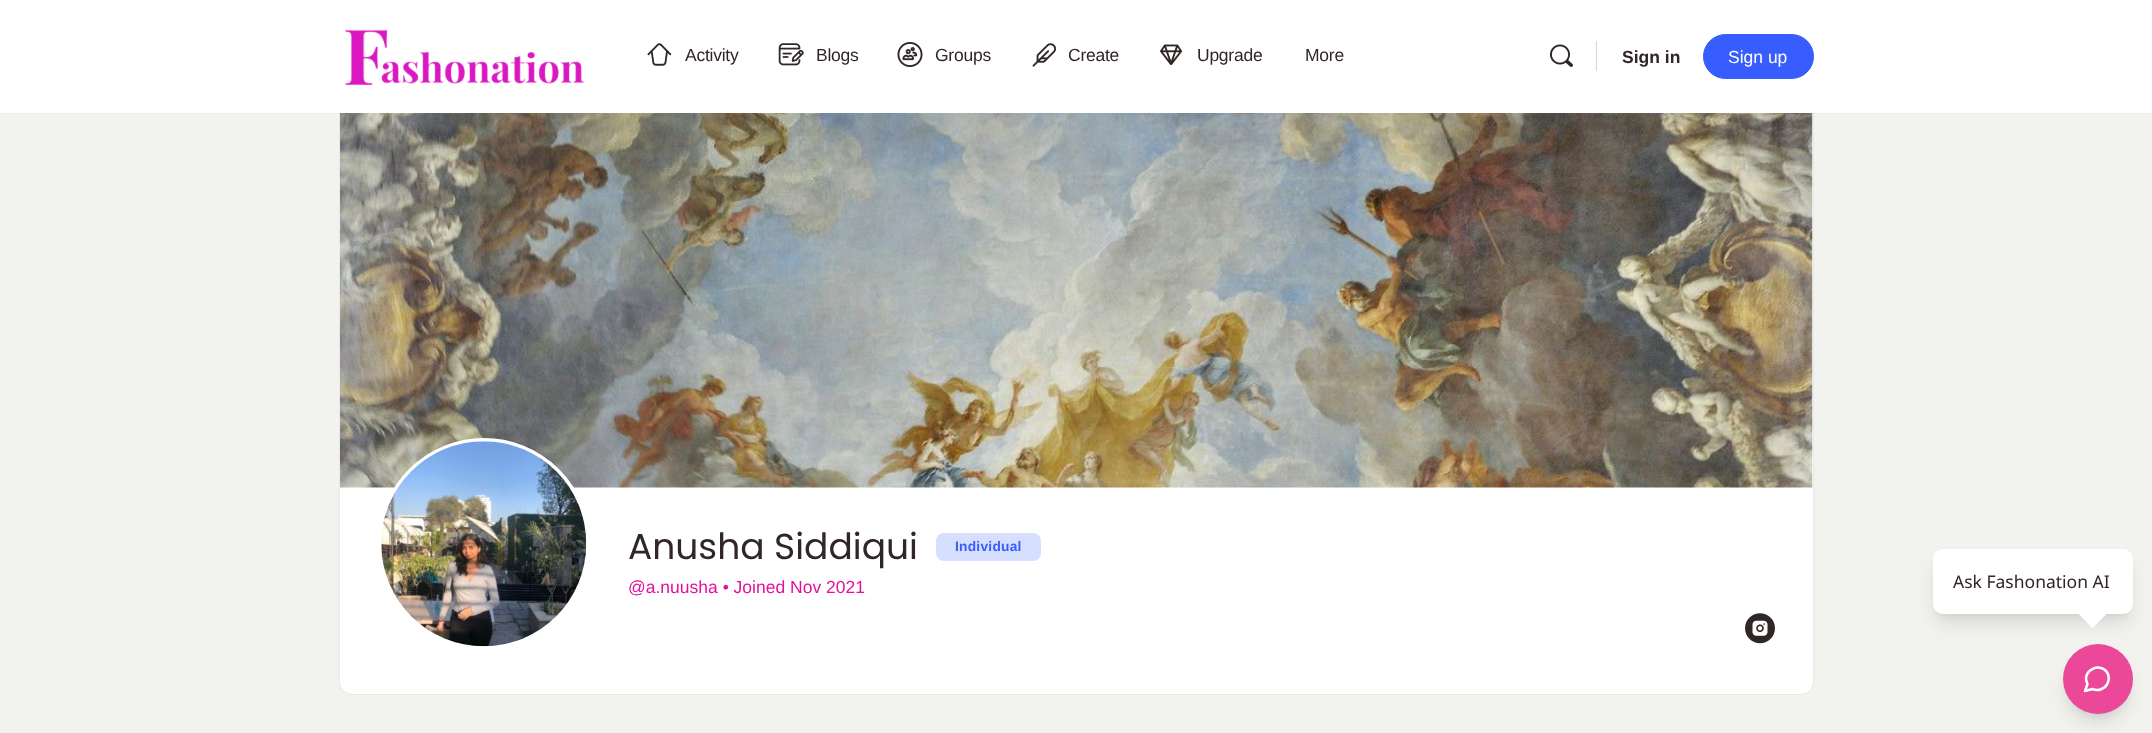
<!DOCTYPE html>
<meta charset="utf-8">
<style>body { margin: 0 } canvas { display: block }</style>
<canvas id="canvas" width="2152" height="733"></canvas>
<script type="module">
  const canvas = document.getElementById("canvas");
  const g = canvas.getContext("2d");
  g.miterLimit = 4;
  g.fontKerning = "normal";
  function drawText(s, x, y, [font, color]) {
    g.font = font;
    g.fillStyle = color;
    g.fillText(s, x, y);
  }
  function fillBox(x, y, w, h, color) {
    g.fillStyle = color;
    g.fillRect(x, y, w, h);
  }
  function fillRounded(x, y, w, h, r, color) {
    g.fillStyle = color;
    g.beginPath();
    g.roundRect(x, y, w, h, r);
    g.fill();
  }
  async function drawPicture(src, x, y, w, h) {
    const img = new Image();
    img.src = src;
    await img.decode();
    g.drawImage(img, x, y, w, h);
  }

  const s1 = ["17.5px Liberation Sans", "#302625"];
  const s2 = ["bold 17.5px Liberation Sans", "#302625"];
  const s3 = ["17.5px Liberation Sans", "#FFFFFF"];
  const s4 = ["36px Poppins", "#302625"];
  const s5 = ["bold 13.75px Liberation Sans", "#385DFF"];
  const s6 = ["17.5px Liberation Sans", "#E2129D"];
  const s7 = ["17.5px Noto Sans", "#302625"];

  fillBox(0, 0, 2152, 733, "#F2F2EF");
  g.fillStyle = "#FFFFFF";
  g.beginPath();
  g.roundRect(339.5, 111.5, 1474, 583, [0, 0, 12.5, 12.5]);
  g.fill();
  g.strokeStyle = "#E7E9EC";
  g.stroke();
  await drawPicture("pic8.png", 340, 113, 1473, 375);
  g.fillStyle = "rgba(139, 141, 157, 0.05)";
  g.beginPath();
  g.moveTo(0, 112);
  g.lineTo(0, 114);
  g.lineTo(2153, 114);
  g.lineTo(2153, 1);
  g.lineTo(2152, 1);
  g.lineTo(2152, 112);
  g.closePath();
  g.fill();
  fillBox(0, 0, 2152, 113, "#FFFFFF");
  await drawPicture("pic1.png", 345, 29, 240, 57);
  await drawPicture("pic2.png", 647, 43, 25, 23);
  g.letterSpacing = "-0.25px";
  drawText("Activity", 685, 61, s1);
  await drawPicture("pic3.png", 778, 43, 26, 23);
  drawText("Blogs", 816, 61, s1);
  await drawPicture("pic4.png", 897, 42, 26, 25);
  drawText("Groups", 935, 61, s1);
  await drawPicture("pic5.png", 1032, 43, 24, 24);
  drawText("Create", 1068, 61, s1);
  await drawPicture("pic6.png", 1160, 44, 23, 21);
  drawText("Upgrade", 1197, 61, s1);
  drawText("More", 1305, 61, s1);
  await drawPicture("pic7.png", 1550, 44, 23, 23);
  fillBox(1596, 41, 1, 30, "#D6D4D3");
  g.letterSpacing = "0px";
  drawText("Sign in", 1622, 63, s2);
  g.fillStyle = "#385DFF";
  g.beginPath();
  g.roundRect(1703.5, 34.5, 110, 44, 22);
  g.fill();
  g.strokeStyle = "#385DFF";
  g.stroke();
  drawText("Sign up", 1728, 63, s3);
  g.beginPath();
  g.arc(484, 544, 104, 0, Math.PI * 2);
  g.strokeStyle = "#FFFFFF";
  g.lineWidth = 4;
  g.stroke();
  await drawPicture("pic9.png", 381, 441, 206, 206);
  drawText("Anusha Siddiqui", 628, 559, s4);
  fillRounded(936, 533, 105, 28, 8, "#D7DFFF");
  g.letterSpacing = "0.25px";
  drawText("Individual", 955, 551, s5);
  g.letterSpacing = "0px";
  drawText("@a.nuusha • Joined Nov 2021", 628, 593, s6);
  await drawPicture("pic10.png", 1745, 613, 30, 31);
  g.fillStyle = "rgba(0, 0, 0, 0.1)";
  g.filter = "blur(4px)";
  g.beginPath();
  g.roundRect(1938, 559, 190, 55, 5);
  g.fill();
  g.filter = "none";
  g.filter = "blur(4px)";
  g.beginPath();
  g.roundRect(2068, 654, 60, 60, 30);
  g.fill();
  g.filter = "none";
  g.filter = "blur(9.5px)";
  g.beginPath();
  g.roundRect(2066, 660, 63, 63, 31.5);
  g.fill();
  g.filter = "none";
  g.fillStyle = "#EC4899";
  g.beginPath();
  g.arc(2098, 679, 35, 0, Math.PI * 2);
  g.fill();
  g.fillStyle = "rgba(0, 0, 0, 0.1)";
  g.filter = "blur(9.5px)";
  g.beginPath();
  g.roundRect(1936, 565, 193, 58, 6);
  g.fill();
  g.filter = "none";
  fillRounded(1933, 549, 200, 65, 10, "#FFFFFF");
  drawText("Ask Fashonation AI", 1953, 588, s7);
  g.fillStyle = "#FFFFFF";
  g.beginPath();
  g.moveTo(2092.5, 599.5);
  g.lineTo(2106.5, 614);
  g.lineTo(2092.5, 628);
  g.lineTo(2078.5, 614);
  g.closePath();
  g.fill();
  g.beginPath();
  g.moveTo(2092.5, 689);
  g.bezierCurveTo(2098, 691.5, 2105, 689, 2107.5, 683.5);
  g.bezierCurveTo(2109, 680.5, 2109, 677, 2108, 674);
  g.bezierCurveTo(2101.5, 660.5, 2080.5, 670.5, 2087.5, 684);
  g.lineTo(2085, 691);
  g.closePath();
  g.lineWidth = 2.5;
  g.lineCap = "round";
  g.lineJoin = "round";
  g.stroke();
</script>
